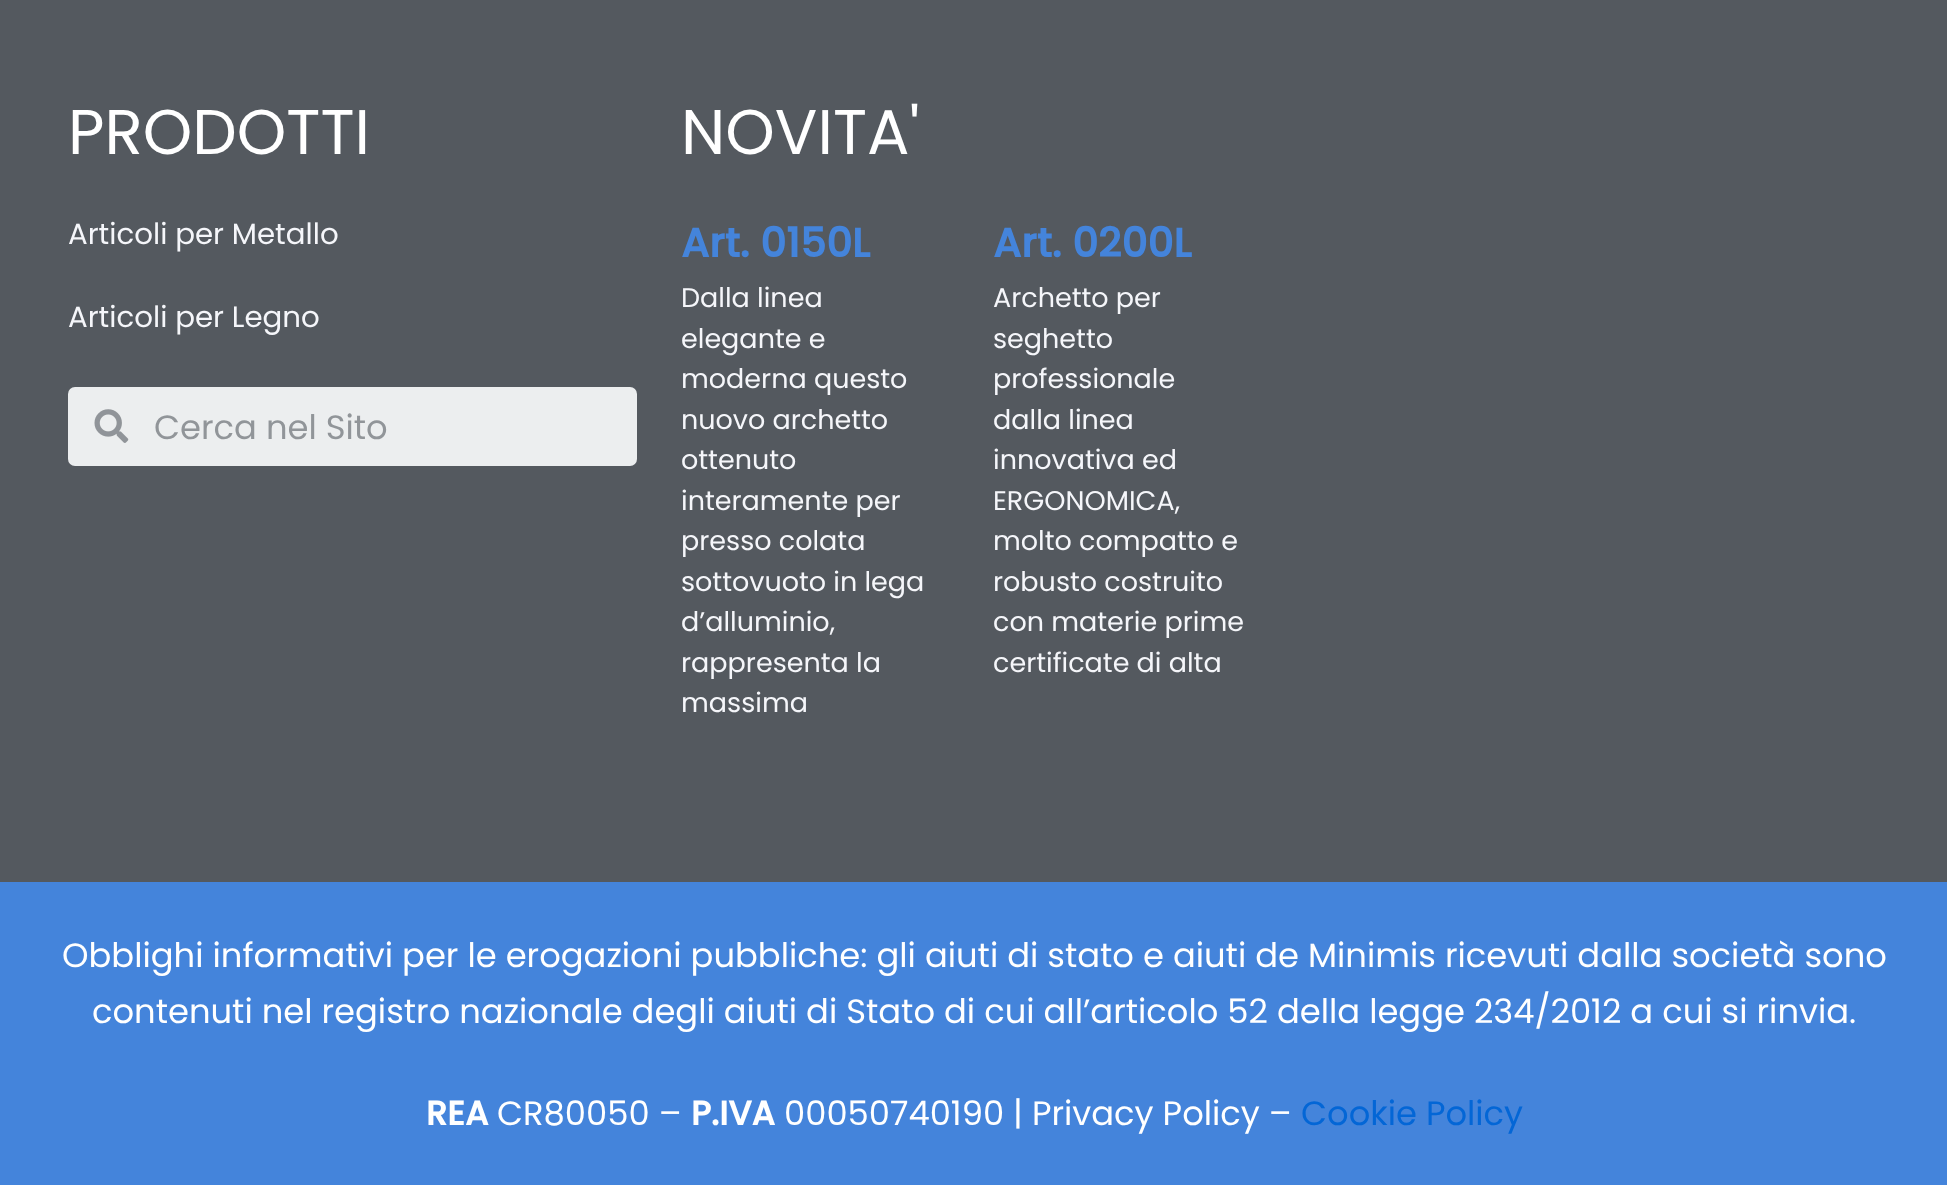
<!DOCTYPE html>
<meta charset="utf-8">
<style>body { margin: 0 } canvas { display: block }</style>
<canvas id="canvas" width="1947" height="1185"></canvas>
<script type="module">
  const canvas = document.getElementById("canvas");
  const g = canvas.getContext("2d");
  g.miterLimit = 4;
  g.fontKerning = "normal";
  function drawText(s, x, y, [font, color]) {
    g.font = font;
    g.fillStyle = color;
    g.fillText(s, x, y);
  }
  function fillBox(x, y, w, h, color) {
    g.fillStyle = color;
    g.fillRect(x, y, w, h);
  }
  function fillRounded(x, y, w, h, r, color) {
    g.fillStyle = color;
    g.beginPath();
    g.roundRect(x, y, w, h, r);
    g.fill();
  }
  async function drawPicture(src, x, y, w, h) {
    const img = new Image();
    img.src = src;
    await img.decode();
    g.drawImage(img, x, y, w, h);
  }

  const s1 = ["63px Poppins", "#FFFFFF"];
  const s2 = ["29.25px Poppins", "#F5F6FA"];
  const s3 = ["33.75px Poppins", "#919599"];
  const s4 = ["bold 40.5px Poppins", "#4484DB"];
  const s5 = ["27px Poppins", "#F5F6FA"];
  const s6 = ["33.75px Poppins", "#FFFFFF"];
  const s7 = ["bold 33.75px Poppins", "#FFFFFF"];
  const s8 = ["33.75px Poppins", "#0366D6"];

  fillBox(0, 0, 1947, 1185, "#54595F");
  drawText("PRODOTTI", 68, 154, s1);
  drawText("Articoli per Metallo", 68, 244, s2);
  drawText("Articoli per Legno", 68, 327, s2);
  fillRounded(68, 387, 569, 79, 7, "#ECEEEF");
  await drawPicture("pic1.png", 94, 409, 35, 34);
  drawText("Cerca nel Sito", 154, 439, s3);
  drawText("NOVITA'", 681, 154, s1);
  drawText("Art. 0150L", 681, 257, s4);
  drawText("Dalla linea", 681, 307, s5);
  drawText("elegante e", 681, 348, s5);
  drawText("moderna questo", 681, 388, s5);
  drawText("nuovo archetto", 681, 429, s5);
  drawText("ottenuto", 681, 469, s5);
  drawText("interamente per", 681, 510, s5);
  drawText("presso colata", 681, 550, s5);
  drawText("sottovuoto in lega", 681, 591, s5);
  drawText("d’alluminio,", 681, 631, s5);
  drawText("rappresenta la", 681, 672, s5);
  drawText("massima", 681, 712, s5);
  drawText("Art. 0200L", 993, 257, s4);
  drawText("Archetto per", 993, 307, s5);
  drawText("seghetto", 993, 348, s5);
  drawText("professionale", 993, 388, s5);
  drawText("dalla linea", 993, 429, s5);
  drawText("innovativa ed", 993, 469, s5);
  drawText("ERGONOMICA,", 993, 510, s5);
  drawText("molto compatto e", 993, 550, s5);
  drawText("robusto costruito", 993, 591, s5);
  drawText("con materie prime", 993, 631, s5);
  drawText("certificate di alta", 993, 672, s5);
  fillBox(0, 882, 1947, 303, "#4484DB");
  drawText("Obblighi informativi per le erogazioni pubbliche: gli aiuti di stato e aiuti de Minimis ricevuti dalla società sono", 62, 967, s6);
  drawText("contenuti nel registro nazionale degli aiuti di Stato di cui all’articolo 52 della legge 234/2012 a cui si rinvia.", 92, 1023, s6);
  drawText("REA", 426, 1125, s7);
  drawText("CR80050 –", 497, 1125, s6);
  drawText("P.IVA", 691, 1125, s7);
  drawText("00050740190 | Privacy Policy –", 784, 1125, s6);
  drawText("Cookie Policy", 1301, 1125, s8);
</script>
